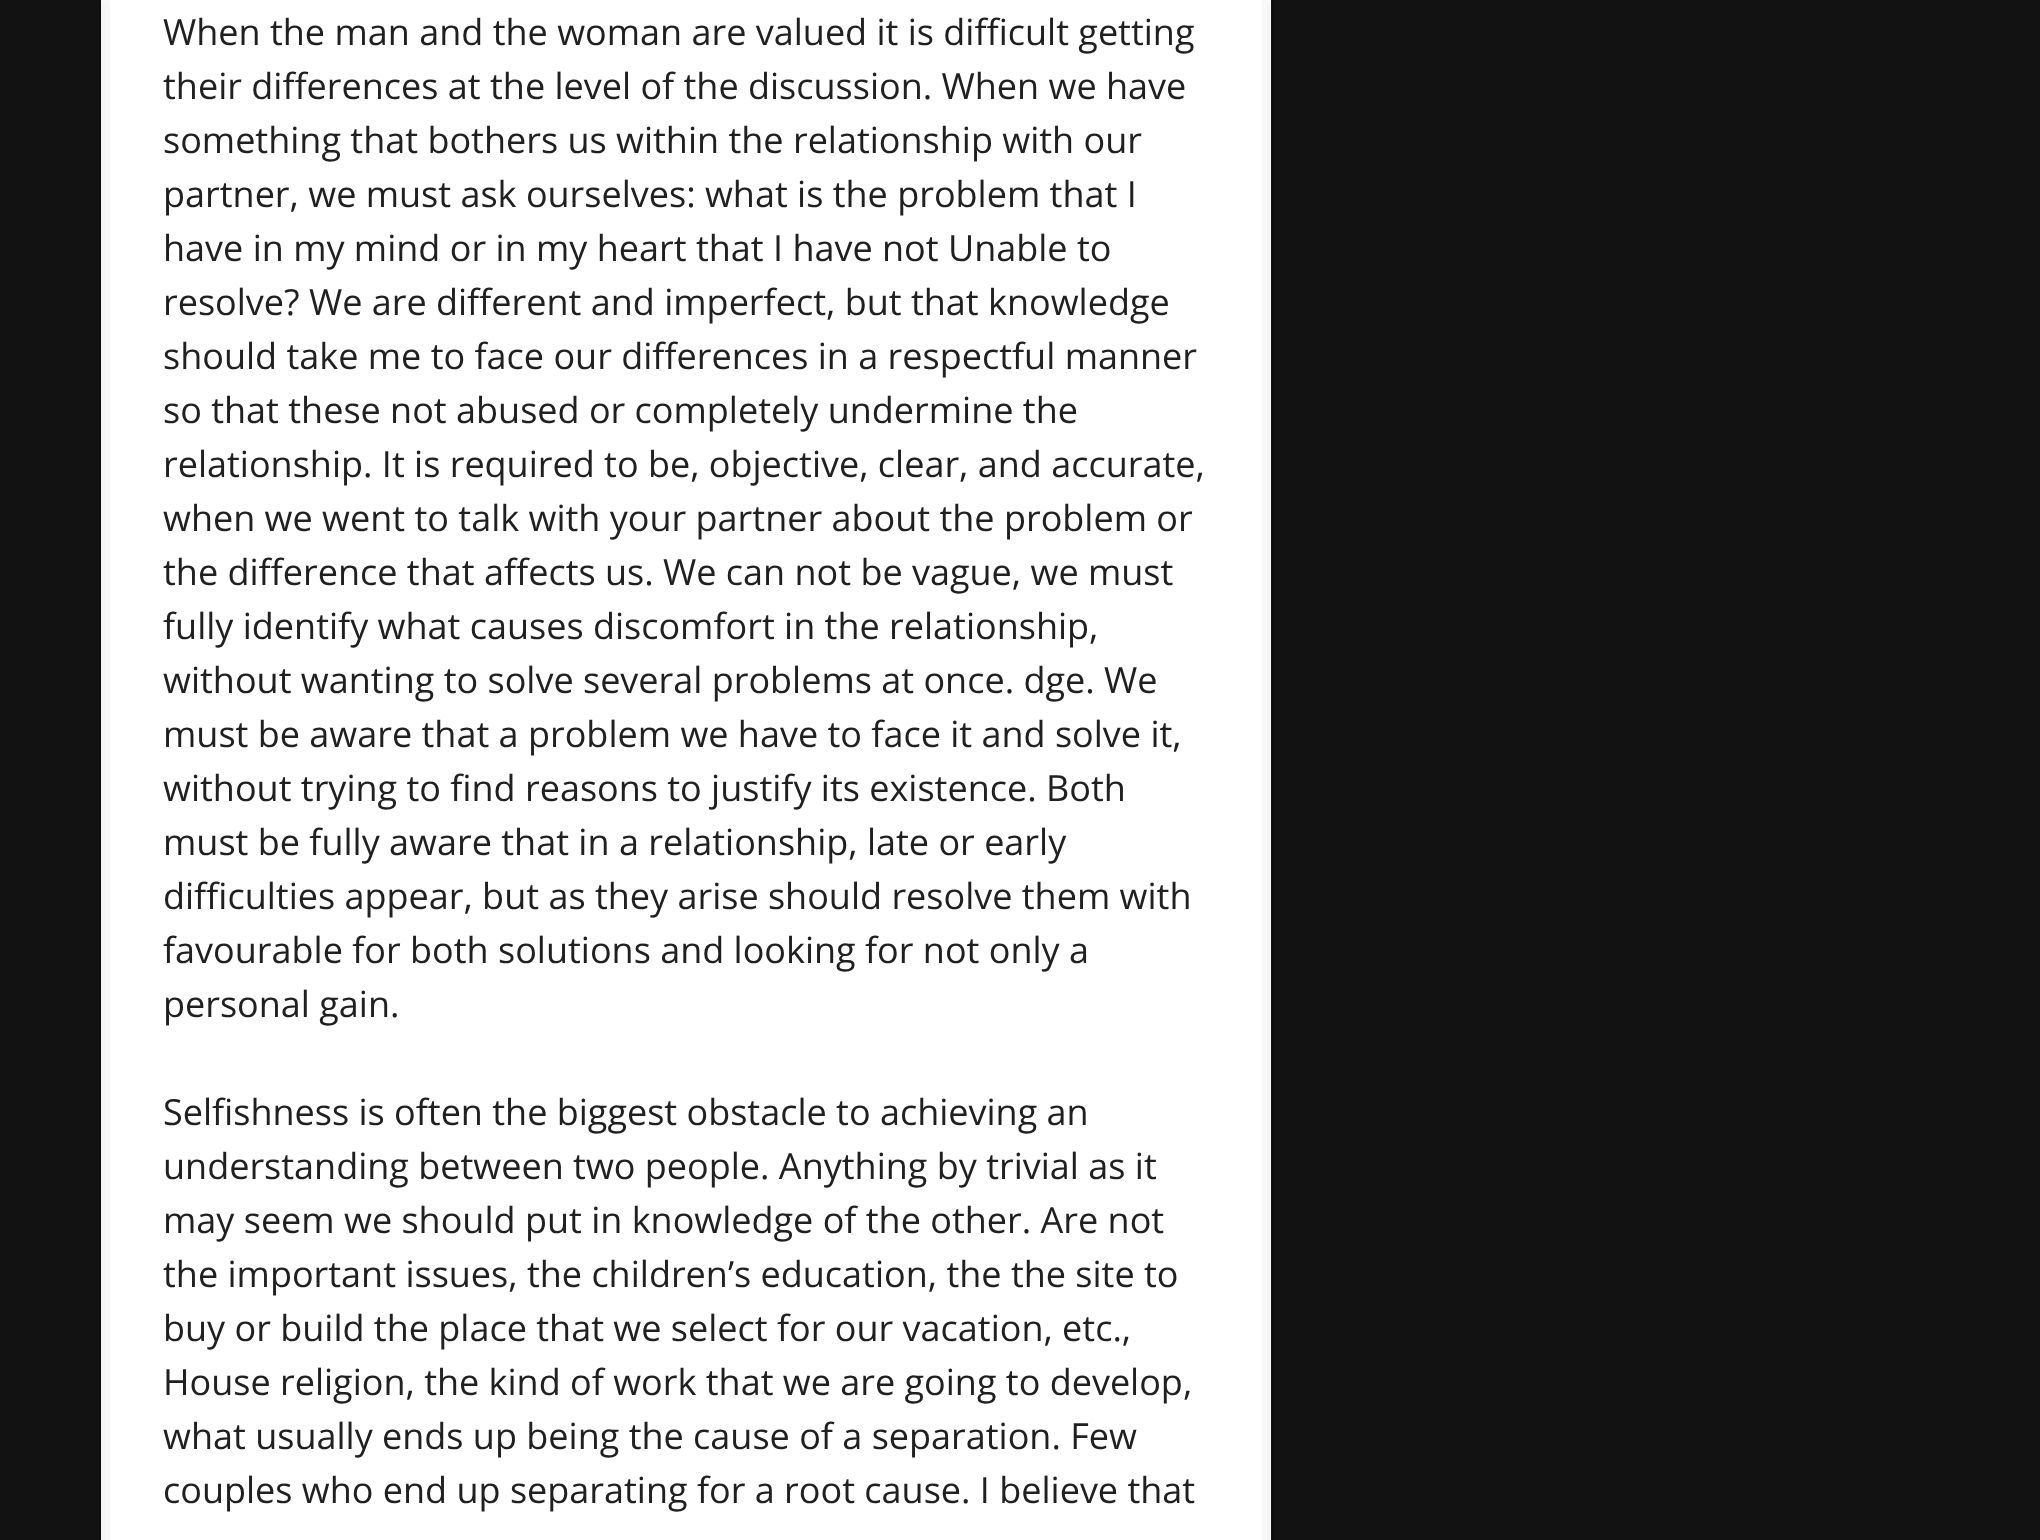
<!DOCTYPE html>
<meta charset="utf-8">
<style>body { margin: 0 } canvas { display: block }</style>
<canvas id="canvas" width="2040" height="1540"></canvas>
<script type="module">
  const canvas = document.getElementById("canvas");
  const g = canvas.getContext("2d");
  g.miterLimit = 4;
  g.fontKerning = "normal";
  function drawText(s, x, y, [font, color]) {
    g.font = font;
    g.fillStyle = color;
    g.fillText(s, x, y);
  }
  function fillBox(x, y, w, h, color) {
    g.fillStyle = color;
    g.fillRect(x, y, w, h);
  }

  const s1 = ["36px Open Sans", "#202020"];

  fillBox(0, 0, 2040, 1540, "#121212");
  g.strokeStyle = "#0E0E0E";
  g.lineWidth = 2;
  g.strokeRect(100, -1, 1173, 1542);
  g.fillStyle = "#FFFFFF";
  g.beginPath();
  g.rect(105.5, -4.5, 1161, 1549);
  g.fill();
  g.strokeStyle = "#F8F8F8";
  g.lineWidth = 9;
  g.stroke();
  g.fillStyle = "#F5F5F5";
  g.beginPath();
  g.moveTo(1271, 4);
  g.lineTo(1271, 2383);
  g.lineTo(1267, 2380);
  g.lineTo(1267, 4);
  g.closePath();
  g.fill();
  g.beginPath();
  g.moveTo(101, 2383);
  g.lineTo(101, 4);
  g.lineTo(106, 4);
  g.lineTo(106, 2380);
  g.closePath();
  g.fill();
  drawText("When the man and the woman are valued it is difficult getting", 163, 45, s1);
  drawText("their differences at the level of the discussion. When we have", 163, 99, s1);
  drawText("something that bothers us within the relationship with our", 163, 153, s1);
  drawText("partner, we must ask ourselves: what is the problem that I", 163, 207, s1);
  drawText("have in my mind or in my heart that I have not Unable to", 163, 261, s1);
  drawText("resolve? We are different and imperfect, but that knowledge", 163, 315, s1);
  drawText("should take me to face our differences in a respectful manner", 163, 369, s1);
  drawText("so that these not abused or completely undermine the", 163, 423, s1);
  drawText("relationship. It is required to be, objective, clear, and accurate,", 163, 477, s1);
  drawText("when we went to talk with your partner about the problem or", 163, 531, s1);
  drawText("the difference that affects us. We can not be vague, we must", 163, 585, s1);
  drawText("fully identify what causes discomfort in the relationship,", 163, 639, s1);
  drawText("without wanting to solve several problems at once. dge. We", 163, 693, s1);
  drawText("must be aware that a problem we have to face it and solve it,", 163, 747, s1);
  drawText("without trying to find reasons to justify its existence. Both", 163, 801, s1);
  drawText("must be fully aware that in a relationship, late or early", 163, 855, s1);
  drawText("difficulties appear, but as they arise should resolve them with", 163, 909, s1);
  drawText("favourable for both solutions and looking for not only a", 163, 963, s1);
  drawText("personal gain.", 163, 1017, s1);
  drawText("Selfishness is often the biggest obstacle to achieving an", 163, 1125, s1);
  drawText("understanding between two people. Anything by trivial as it", 163, 1179, s1);
  drawText("may seem we should put in knowledge of the other. Are not", 163, 1233, s1);
  drawText("the important issues, the children’s education, the the site to", 163, 1287, s1);
  drawText("buy or build the place that we select for our vacation, etc.,", 163, 1341, s1);
  drawText("House religion, the kind of work that we are going to develop,", 163, 1395, s1);
  drawText("what usually ends up being the cause of a separation. Few", 163, 1449, s1);
  drawText("couples who end up separating for a root cause. I believe that", 163, 1503, s1);
</script>
